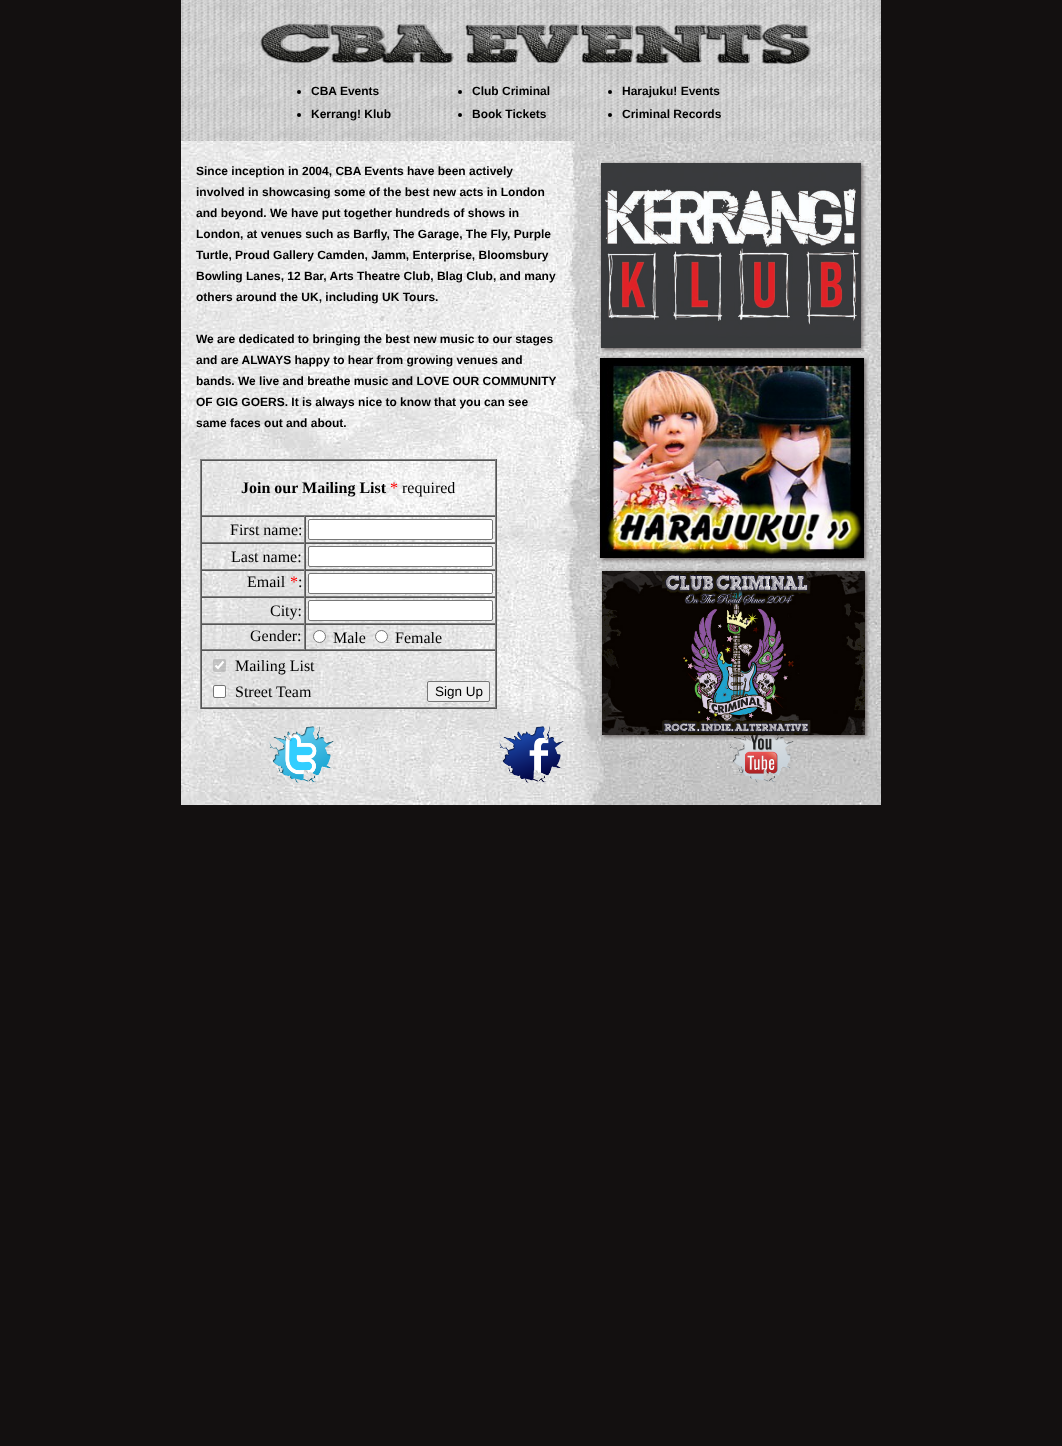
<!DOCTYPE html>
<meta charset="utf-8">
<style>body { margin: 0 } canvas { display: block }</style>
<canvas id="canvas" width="1062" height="1446"></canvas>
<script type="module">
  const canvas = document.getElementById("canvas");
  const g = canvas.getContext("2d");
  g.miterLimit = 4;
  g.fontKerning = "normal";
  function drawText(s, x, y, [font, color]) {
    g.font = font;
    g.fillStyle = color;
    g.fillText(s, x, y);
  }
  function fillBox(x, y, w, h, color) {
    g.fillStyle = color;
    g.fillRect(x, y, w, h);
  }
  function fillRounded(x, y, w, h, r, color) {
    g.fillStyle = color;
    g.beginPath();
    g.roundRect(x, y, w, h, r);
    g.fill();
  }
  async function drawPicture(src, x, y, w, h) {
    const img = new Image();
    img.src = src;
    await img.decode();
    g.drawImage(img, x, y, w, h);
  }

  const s1 = ["bold 12px Liberation Sans", "#000000"];
  const s2 = ["bold 16px Liberation Serif", "#000000"];
  const s3 = ["16px Liberation Serif", "#FF0000"];
  const s4 = ["16px Liberation Serif", "#000000"];
  const s5 = ["13.5px Liberation Sans", "#000000"];

  fillBox(0, 0, 1062, 1446, "#131010");
  await drawPicture("pic1.png", 181, 141, 700, 664);
  await drawPicture("pic2.png", 181, 0, 700, 141);
  await drawPicture("pic3.png", 260, 23, 552, 42);
  g.fillStyle = "#000000";
  g.beginPath();
  g.arc(299, 92, 2, 0, Math.PI * 2);
  g.fill();
  drawText("CBA Events", 311, 95, s1);
  g.beginPath();
  g.arc(460, 92, 2, 0, Math.PI * 2);
  g.fill();
  drawText("Club Criminal", 472, 95, s1);
  g.beginPath();
  g.arc(610, 92, 2, 0, Math.PI * 2);
  g.fill();
  drawText("Harajuku! Events", 622, 95, s1);
  g.beginPath();
  g.arc(299, 115, 2, 0, Math.PI * 2);
  g.fill();
  drawText("Kerrang! Klub", 311, 118, s1);
  g.beginPath();
  g.arc(460, 115, 2, 0, Math.PI * 2);
  g.fill();
  drawText("Book Tickets", 472, 118, s1);
  g.beginPath();
  g.arc(610, 115, 2, 0, Math.PI * 2);
  g.fill();
  drawText("Criminal Records", 622, 118, s1);
  drawText("Since inception in 2004, CBA Events have been actively", 196, 175, s1);
  drawText("involved in showcasing some of the best new acts in London", 196, 196, s1);
  drawText("and beyond. We have put together hundreds of shows in", 196, 217, s1);
  drawText("London, at venues such as Barfly, The Garage, The Fly, Purple", 196, 238, s1);
  drawText("Turtle, Proud Gallery Camden, Jamm, Enterprise, Bloomsbury", 196, 259, s1);
  drawText("Bowling Lanes, 12 Bar, Arts Theatre Club, Blag Club, and many", 196, 280, s1);
  drawText("others around the UK, including UK Tours.", 196, 301, s1);
  drawText("We are dedicated to bringing the best new music to our stages", 196, 343, s1);
  drawText("and are ALWAYS happy to hear from growing venues and", 196, 364, s1);
  drawText("bands. We live and breathe music and LOVE OUR COMMUNITY", 196, 385, s1);
  drawText("OF GIG GOERS. It is always nice to know that you can see", 196, 406, s1);
  drawText("same faces out and about.", 196, 427, s1);
  fillBox(200, 459, 297, 1, "#808080");
  fillBox(496, 459, 1, 250, "#555555");
  fillBox(200, 708, 297, 1, "#555555");
  fillBox(200, 459, 1, 250, "#808080");
  fillBox(201, 460, 295, 1, "#555555");
  fillBox(495, 460, 1, 56, "#808080");
  fillBox(201, 515, 295, 1, "#808080");
  fillBox(201, 460, 1, 56, "#555555");
  drawText("Join our Mailing List", 241, 493, s2);
  drawText("*", 390, 493, s3);
  drawText("required", 402, 493, s4);
  fillBox(201, 516, 295, 1, "#555555");
  fillBox(304, 516, 1, 27, "#808080");
  fillBox(201, 542, 104, 1, "#808080");
  fillBox(201, 516, 1, 27, "#555555");
  drawText("First name:", 230, 535, s4);
  fillBox(495, 516, 1, 27, "#808080");
  fillBox(305, 542, 191, 1, "#808080");
  fillBox(305, 516, 1, 27, "#555555");
  g.fillStyle = "#FFFFFF";
  g.beginPath();
  g.roundRect(308.5, 519.5, 184, 20, 1.5);
  g.fill();
  g.strokeStyle = "#767676";
  g.stroke();
  fillBox(201, 543, 295, 1, "#555555");
  fillBox(304, 543, 1, 27, "#808080");
  fillBox(201, 569, 104, 1, "#808080");
  fillBox(201, 543, 1, 27, "#555555");
  drawText("Last name:", 231, 562, s4);
  fillBox(495, 543, 1, 27, "#808080");
  fillBox(305, 569, 191, 1, "#808080");
  fillBox(305, 543, 1, 27, "#555555");
  g.fillStyle = "#FFFFFF";
  g.beginPath();
  g.roundRect(308.5, 546.5, 184, 20, 1.5);
  g.fill();
  g.stroke();
  fillBox(201, 570, 295, 1, "#555555");
  fillBox(304, 570, 1, 27, "#808080");
  fillBox(201, 596, 104, 1, "#808080");
  fillBox(201, 570, 1, 27, "#555555");
  drawText("Email", 247, 587, s4);
  drawText("*", 290, 587, s3);
  drawText(":", 298, 587, s4);
  fillBox(495, 570, 1, 27, "#808080");
  fillBox(305, 596, 191, 1, "#808080");
  fillBox(305, 570, 1, 27, "#555555");
  g.fillStyle = "#FFFFFF";
  g.beginPath();
  g.roundRect(308.5, 573.5, 184, 20, 1.5);
  g.fill();
  g.stroke();
  fillBox(201, 597, 295, 1, "#555555");
  fillBox(304, 597, 1, 27, "#808080");
  fillBox(201, 623, 104, 1, "#808080");
  fillBox(201, 597, 1, 27, "#555555");
  drawText("City:", 270, 616, s4);
  fillBox(495, 597, 1, 27, "#808080");
  fillBox(305, 623, 191, 1, "#808080");
  fillBox(305, 597, 1, 27, "#555555");
  g.fillStyle = "#FFFFFF";
  g.beginPath();
  g.roundRect(308.5, 600.5, 184, 20, 1.5);
  g.fill();
  g.stroke();
  fillBox(201, 624, 295, 1, "#555555");
  fillBox(304, 624, 1, 26, "#808080");
  fillBox(201, 649, 104, 1, "#808080");
  fillBox(201, 624, 1, 26, "#555555");
  drawText("Gender:", 250, 641, s4);
  fillBox(495, 624, 1, 26, "#808080");
  fillBox(305, 649, 191, 1, "#808080");
  fillBox(305, 624, 1, 26, "#555555");
  g.fillStyle = "#FFFFFF";
  g.beginPath();
  g.arc(319.5, 636.5, 6, 0, Math.PI * 2);
  g.fill();
  g.stroke();
  drawText("Male", 333, 643, s4);
  g.fillStyle = "#FFFFFF";
  g.beginPath();
  g.arc(381.5, 636.5, 6, 0, Math.PI * 2);
  g.fill();
  g.stroke();
  drawText("Female", 395, 643, s4);
  fillBox(201, 650, 295, 1, "#555555");
  fillBox(495, 650, 1, 58, "#808080");
  fillBox(201, 707, 295, 1, "#808080");
  fillBox(201, 650, 1, 58, "#555555");
  fillRounded(213, 659, 13, 13, 2, "rgba(118, 118, 118, 0.3)");
  g.beginPath();
  g.moveTo(215.5, 665.5);
  g.lineTo(218, 668);
  g.lineTo(223.5, 661.5);
  g.strokeStyle = "#FFFFFF";
  g.lineWidth = 2.1;
  g.stroke();
  drawText("Mailing List", 235, 671, s4);
  g.fillStyle = "#FFFFFF";
  g.beginPath();
  g.roundRect(213.5, 685.5, 12, 12, 1.5);
  g.fill();
  g.strokeStyle = "#767676";
  g.lineWidth = 1;
  g.stroke();
  drawText("Street Team", 235, 697, s4);
  g.fillStyle = "#EFEFEF";
  g.beginPath();
  g.roundRect(427.5, 681.5, 62, 20, 1.5);
  g.fill();
  g.stroke();
  drawText("Sign Up", 435, 696, s5);
  await drawPicture("pic4.png", 598, 160, 268, 193);
  await drawPicture("pic5.png", 597, 355, 272, 208);
  await drawPicture("pic9.png", 729, 735, 65, 48);
  await drawPicture("pic6.png", 599, 568, 271, 172);
  await drawPicture("pic7.png", 269, 726, 65, 58);
  await drawPicture("pic8.png", 499, 726, 65, 58);
</script>
